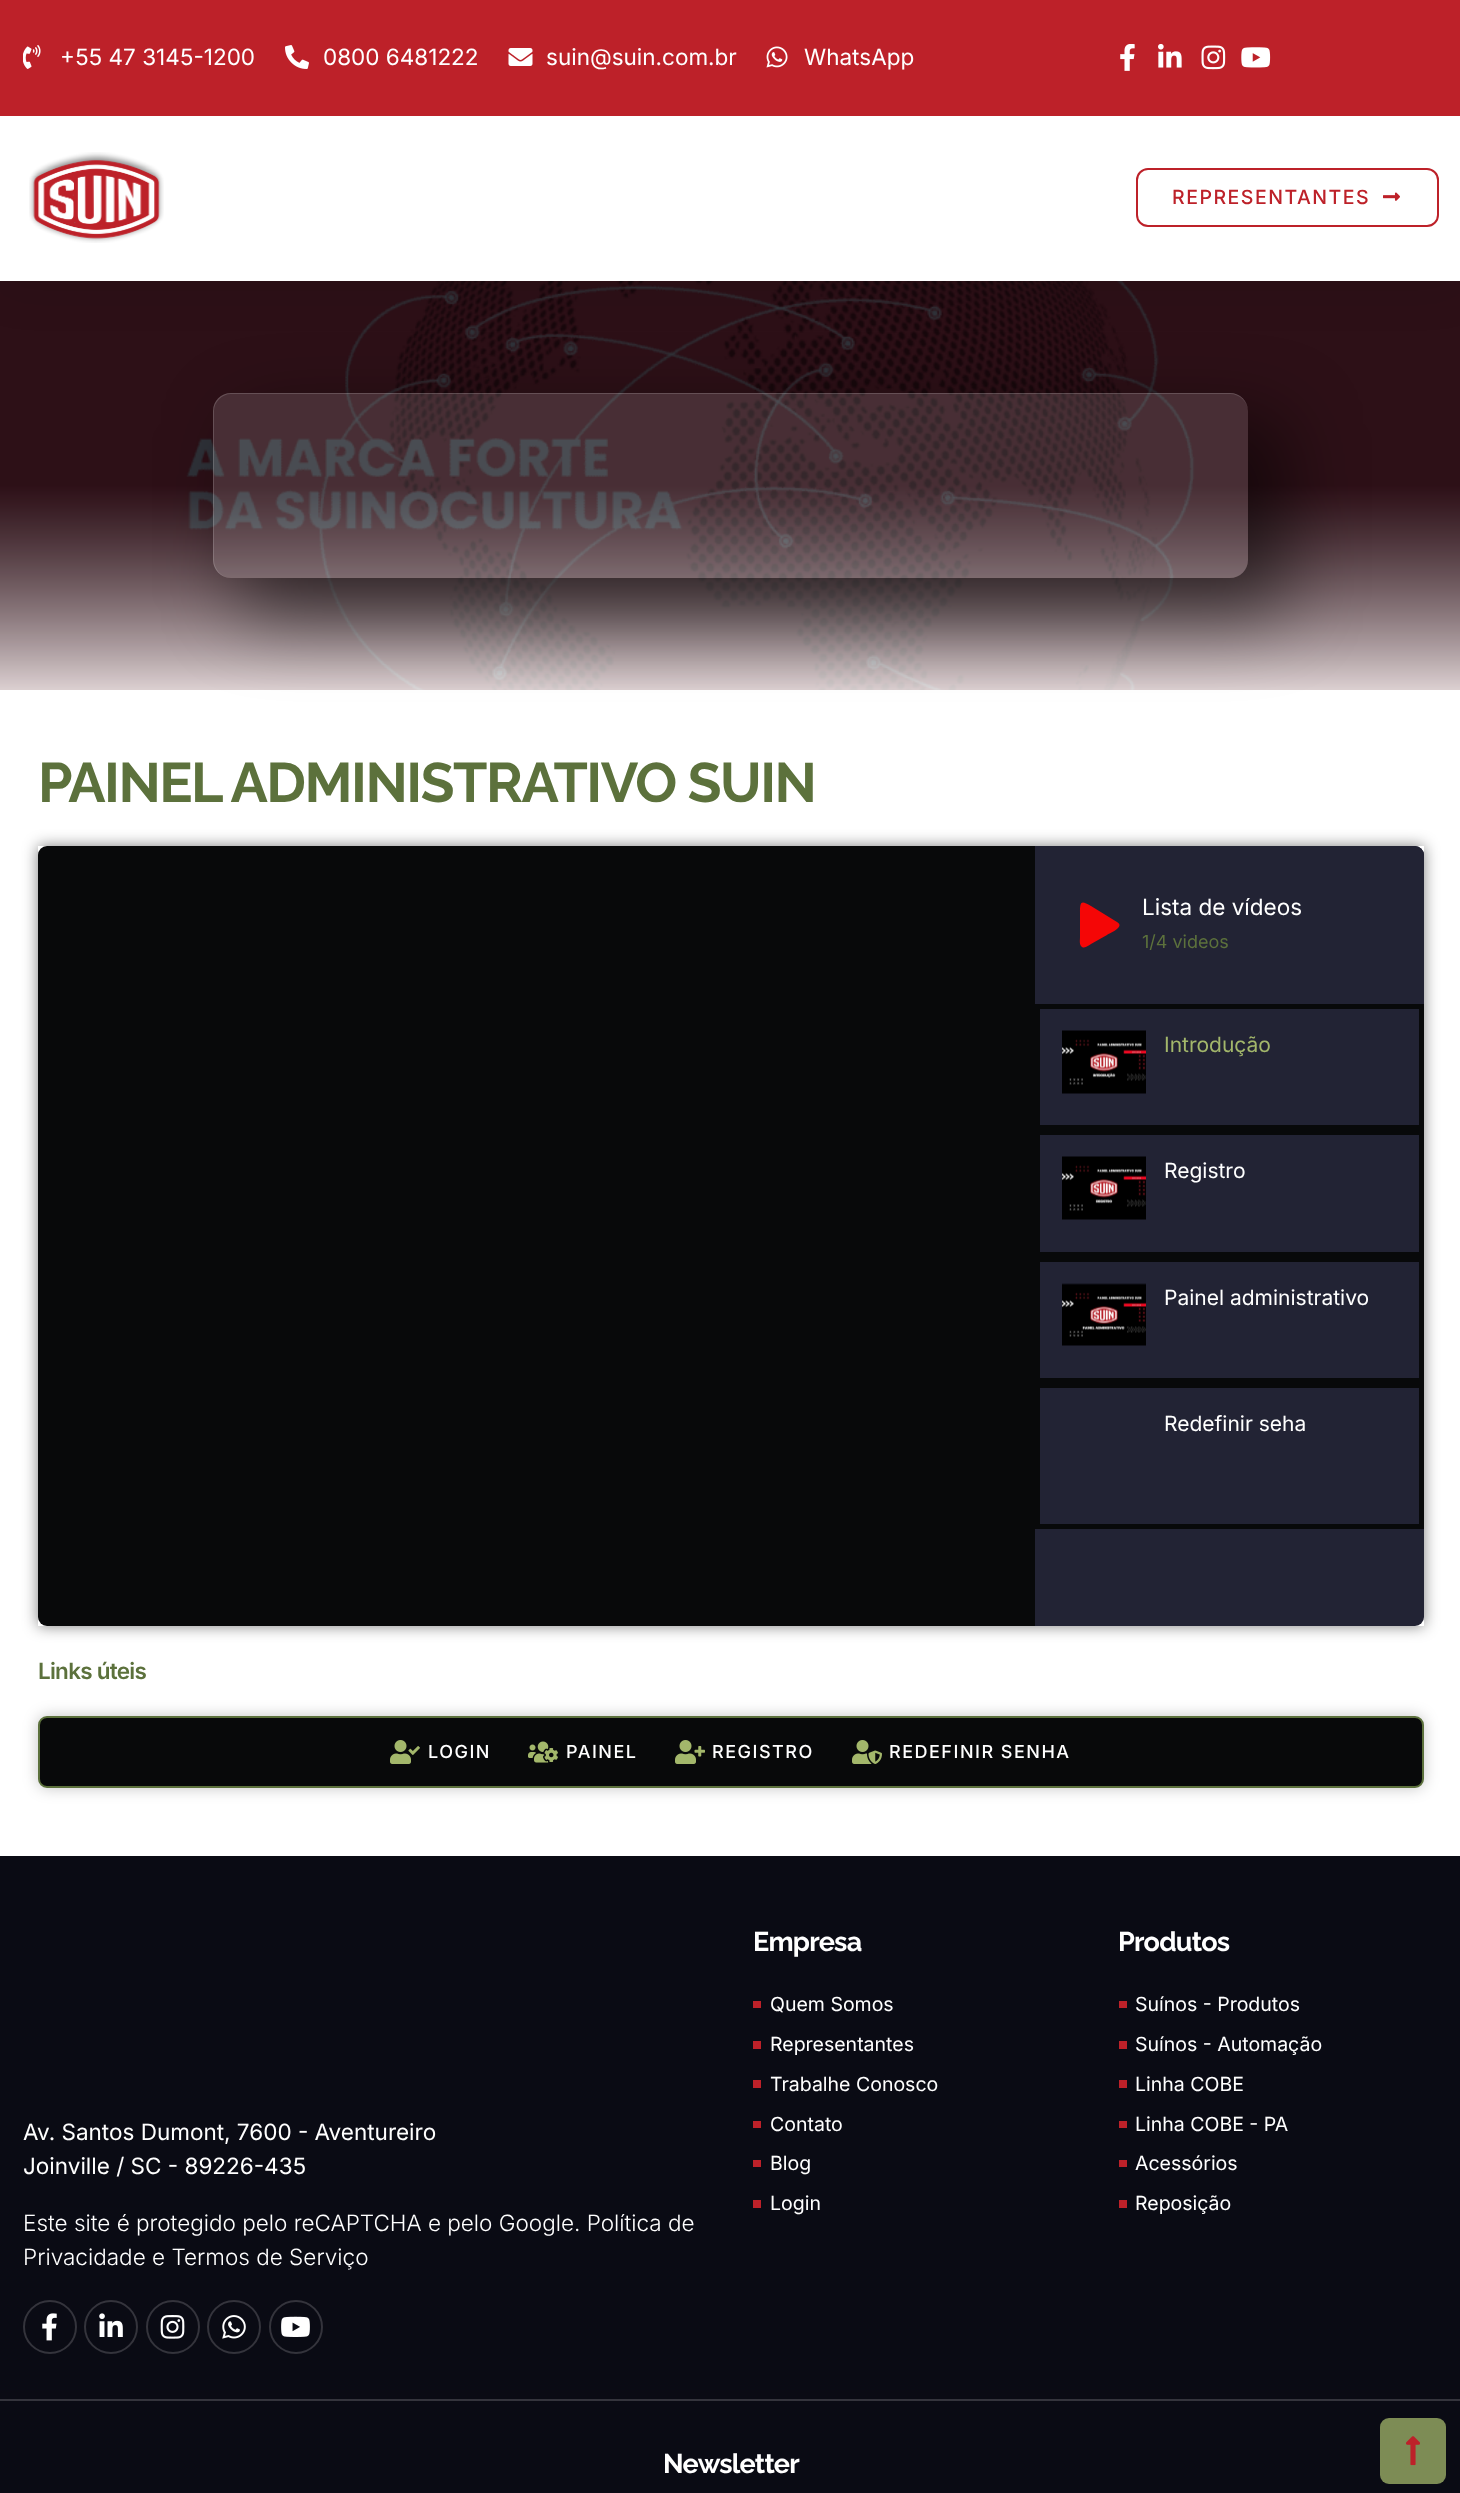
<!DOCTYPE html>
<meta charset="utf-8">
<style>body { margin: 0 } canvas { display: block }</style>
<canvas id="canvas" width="1460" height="2493"></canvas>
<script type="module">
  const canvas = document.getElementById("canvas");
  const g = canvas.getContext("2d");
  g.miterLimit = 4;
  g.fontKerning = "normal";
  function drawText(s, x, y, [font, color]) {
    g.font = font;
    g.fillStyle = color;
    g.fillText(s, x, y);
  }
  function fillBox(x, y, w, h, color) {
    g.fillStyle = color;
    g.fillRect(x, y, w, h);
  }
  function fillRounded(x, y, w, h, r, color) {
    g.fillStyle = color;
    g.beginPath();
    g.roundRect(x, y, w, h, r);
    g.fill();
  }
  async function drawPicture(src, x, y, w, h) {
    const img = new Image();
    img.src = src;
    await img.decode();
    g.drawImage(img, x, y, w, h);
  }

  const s1 = ["22.5px Inter", "#FFFFFF"];
  const s2 = ["500 19.5px Inter", "#BD2129"];
  const s3 = ["bold 55.5px Raleway", "#5C713C"];
  const s4 = ["18px Inter", "#5C713C"];
  const s5 = ["21px Inter", "#A3B76B"];
  const s6 = ["21px Inter", "#FFFFFF"];
  const s7 = ["600 22.5px Inter", "#5C713C"];
  const s8 = ["500 18px Inter", "#FFFFFF"];
  const s9 = ["300 22.5px Inter", "#FFFFFF"];
  const s10 = ["bold 27px Raleway", "#FFFFFF"];
  const s11 = ["19.5px Inter", "#FFFFFF"];

  fillBox(0, 0, 1460, 2493, "#FFFFFF");
  await drawPicture("pic11.png", 0, 281, 1460, 409);
  g.fillStyle = "rgba(0, 0, 0, 0.1)";
  g.filter = "blur(22.5px)";
  g.beginPath();
  g.rect(0, 8, 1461, 280);
  g.fill();
  g.filter = "none";
  fillBox(0, 0, 1460, 116, "#BD2129");
  await drawPicture("pic1.png", 23, 45, 18, 24);
  drawText("+55 47 3145-1200", 60, 65, s1);
  await drawPicture("pic2.png", 285, 45, 24, 24);
  drawText("0800 6481222", 323, 65, s1);
  await drawPicture("pic3.png", 508, 48, 25, 18);
  drawText("suin@suin.com.br", 546, 65, s1);
  await drawPicture("pic4.png", 766, 46, 22, 22);
  drawText("WhatsApp", 804, 65, s1);
  await drawPicture("pic5.png", 1120, 44, 15, 27);
  await drawPicture("pic6.png", 1158, 44, 24, 24);
  await drawPicture("pic7.png", 1201, 45, 25, 25);
  await drawPicture("pic8.png", 1241, 47, 30, 21);
  fillBox(0, 116, 1460, 165, "#FFFFFF");
  await drawPicture("pic9.png", 29, 152, 135, 91);
  g.beginPath();
  g.roundRect(1137, 169, 301, 57, 11);
  g.strokeStyle = "#BD2129";
  g.lineWidth = 2;
  g.stroke();
  g.letterSpacing = "1.5px";
  drawText("REPRESENTANTES", 1172, 204, s2);
  await drawPicture("pic10.png", 1383, 192, 17, 9);
  g.save();
  g.beginPath();
  g.moveTo(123, 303);
  g.lineTo(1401, 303);
  g.lineTo(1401, 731);
  g.lineTo(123, 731);
  g.closePath();
  g.moveTo(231, 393);
  g.lineTo(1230, 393);
  g.bezierCurveTo(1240, 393, 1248, 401, 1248, 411);
  g.lineTo(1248, 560);
  g.bezierCurveTo(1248, 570, 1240, 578, 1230, 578);
  g.lineTo(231, 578);
  g.bezierCurveTo(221, 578, 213, 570, 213, 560);
  g.lineTo(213, 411);
  g.bezierCurveTo(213, 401, 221, 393, 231, 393);
  g.closePath();
  g.clip("evenodd");
  g.fillStyle = "rgba(0, 0, 0, 0.5)";
  g.filter = "blur(37.5px)";
  g.beginPath();
  g.roundRect(237, 417, 1050, 200, 26);
  g.fill();
  g.filter = "none";
  g.restore();
  fillRounded(213, 393, 1035, 185, 18, "rgba(255, 255, 255, 0.13)");
  g.fillStyle = "rgba(255, 255, 255, 0.16)";
  g.beginPath();
  g.moveTo(231, 393);
  g.lineTo(1230, 393);
  g.bezierCurveTo(1240, 393, 1248, 401, 1248, 411);
  g.lineTo(1248, 560);
  g.bezierCurveTo(1248, 569, 1240, 578, 1230, 578);
  g.lineTo(231, 578);
  g.bezierCurveTo(221, 578, 213, 569, 213, 560);
  g.lineTo(213, 411);
  g.bezierCurveTo(213, 401, 221, 393, 231, 393);
  g.closePath();
  g.moveTo(231, 394);
  g.lineTo(1230, 394);
  g.bezierCurveTo(1240, 394, 1248, 402, 1248, 411);
  g.lineTo(1248, 560);
  g.bezierCurveTo(1248, 569, 1240, 578, 1230, 578);
  g.lineTo(231, 578);
  g.bezierCurveTo(222, 578, 214, 569, 214, 560);
  g.lineTo(214, 411);
  g.bezierCurveTo(214, 402, 222, 394, 231, 394);
  g.closePath();
  g.fill("evenodd");
  g.letterSpacing = "-1.5px";
  drawText("PAINEL ADMINISTRATIVO SUIN", 38, 802, s3);
  g.save();
  g.beginPath();
  g.moveTo(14, 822);
  g.lineTo(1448, 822);
  g.lineTo(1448, 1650);
  g.lineTo(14, 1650);
  g.closePath();
  g.moveTo(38, 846);
  g.lineTo(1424, 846);
  g.lineTo(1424, 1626);
  g.lineTo(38, 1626);
  g.closePath();
  g.clip("evenodd");
  g.fillStyle = "rgba(0, 0, 0, 0.5)";
  g.filter = "blur(7.5px)";
  g.beginPath();
  g.rect(38, 846, 1386, 780);
  g.fill();
  g.filter = "none";
  g.restore();
  g.fillStyle = "#08090A";
  g.beginPath();
  g.roundRect(38, 846, 997, 780, [9, 0, 0, 9]);
  g.fill();
  g.fillStyle = "#222334";
  g.beginPath();
  g.roundRect(1035, 846, 389, 780, [0, 9, 9, 0]);
  g.fill();
  g.beginPath();
  g.roundRect(1035, 846, 389, 158, [0, 9, 0, 0]);
  g.fill();
  g.fillStyle = "#F50606";
  g.beginPath();
  g.moveTo(1117, 922);
  g.bezierCurveTo(1126, 927, 1108, 934, 1107, 935);
  g.lineTo(1091, 944);
  g.bezierCurveTo(1089, 945, 1085, 949, 1082, 947);
  g.bezierCurveTo(1079, 945, 1080, 940, 1080, 937);
  g.lineTo(1080, 913);
  g.bezierCurveTo(1080, 901, 1081, 900, 1091, 906);
  g.closePath();
  g.fill();
  g.letterSpacing = "0px";
  drawText("Lista de vídeos", 1142, 915, s1);
  drawText("1/4 videos", 1142, 948, s4);
  g.strokeStyle = "#08090A";
  g.lineWidth = 5;
  g.strokeRect(1037.5, 1006.5, 384, 121);
  await drawPicture("pic12.png", 1062, 1030, 84, 64);
  drawText("Introdução", 1164, 1052, s5);
  g.strokeRect(1037.5, 1132.5, 384, 122);
  await drawPicture("pic13.png", 1062, 1156, 84, 64);
  drawText("Registro", 1164, 1178, s6);
  g.strokeRect(1037.5, 1259.5, 384, 121);
  await drawPicture("pic14.png", 1062, 1283, 84, 63);
  drawText("Painel administrativo", 1164, 1305, s6);
  g.strokeRect(1037.5, 1385.5, 384, 141);
  drawText("Redefinir seha", 1164, 1431, s6);
  g.letterSpacing = "-0.75px";
  drawText("Links úteis", 38, 1679, s7);
  g.fillStyle = "rgba(0, 0, 0, 0.23)";
  g.filter = "blur(7.5px)";
  g.beginPath();
  g.roundRect(38, 1716, 1386, 72, 9);
  g.fill();
  g.filter = "none";
  g.fillStyle = "#08090A";
  g.beginPath();
  g.roundRect(39, 1717, 1384, 70, 8);
  g.fill();
  g.strokeStyle = "#5C713C";
  g.lineWidth = 2;
  g.stroke();
  await drawPicture("pic15.png", 390, 1740, 30, 24);
  g.letterSpacing = "1.5px";
  drawText("LOGIN", 428, 1758, s8);
  await drawPicture("pic16.png", 528, 1741, 30, 22);
  drawText("PAINEL", 566, 1758, s8);
  await drawPicture("pic17.png", 675, 1740, 30, 24);
  drawText("REGISTRO", 712, 1758, s8);
  await drawPicture("pic18.png", 852, 1740, 30, 24);
  drawText("REDEFINIR SENHA", 889, 1758, s8);
  fillBox(0, 1856, 1460, 637, "#0A0B14");
  fillBox(0, 2399, 1460, 2, "#34343C");
  g.letterSpacing = "0px";
  drawText("Av. Santos Dumont, 7600 - Aventureiro", 23, 2140, s1);
  drawText("Joinville / SC - 89226-435", 23, 2174, s1);
  drawText("Este site é protegido pelo reCAPTCHA e pelo Google. Política de", 23, 2231, s9);
  drawText("Privacidade e Termos de Serviço", 23, 2265, s9);
  g.beginPath();
  g.arc(50, 2327, 26, 0, Math.PI * 2);
  g.strokeStyle = "#34343C";
  g.stroke();
  await drawPicture("pic19.png", 42, 2313, 15, 28);
  g.beginPath();
  g.arc(111, 2327, 26, 0, Math.PI * 2);
  g.stroke();
  await drawPicture("pic20.png", 99, 2313, 24, 24);
  g.beginPath();
  g.arc(173, 2327, 26, 0, Math.PI * 2);
  g.stroke();
  await drawPicture("pic21.png", 160, 2315, 25, 24);
  g.beginPath();
  g.arc(234, 2327, 26, 0, Math.PI * 2);
  g.stroke();
  await drawPicture("pic22.png", 222, 2315, 24, 24);
  g.beginPath();
  g.arc(296, 2327, 26, 0, Math.PI * 2);
  g.stroke();
  await drawPicture("pic23.png", 281, 2316, 29, 21);
  g.letterSpacing = "-0.75px";
  drawText("Empresa", 753, 1951, s10);
  fillBox(753, 2001, 8, 7, "#BD2129");
  g.letterSpacing = "0px";
  drawText("Quem Somos", 770, 2011, s11);
  fillBox(753, 2041, 8, 8, "#BD2129");
  drawText("Representantes", 770, 2051, s11);
  fillBox(753, 2080, 8, 8, "#BD2129");
  drawText("Trabalhe Conosco", 770, 2091, s11);
  fillBox(753, 2121, 8, 7, "#BD2129");
  drawText("Contato", 770, 2131, s11);
  fillBox(753, 2160, 8, 7, "#BD2129");
  drawText("Blog", 770, 2170, s11);
  fillBox(753, 2200, 8, 8, "#BD2129");
  drawText("Login", 770, 2210, s11);
  g.letterSpacing = "-0.75px";
  drawText("Produtos", 1118, 1951, s10);
  fillBox(1119, 2001, 8, 7, "#BD2129");
  g.letterSpacing = "0px";
  drawText("Suínos - Produtos", 1135, 2011, s11);
  fillBox(1119, 2041, 8, 8, "#BD2129");
  drawText("Suínos - Automação", 1135, 2051, s11);
  fillBox(1119, 2080, 8, 8, "#BD2129");
  drawText("Linha COBE", 1135, 2091, s11);
  fillBox(1119, 2121, 8, 7, "#BD2129");
  drawText("Linha COBE - PA", 1135, 2131, s11);
  fillBox(1119, 2160, 8, 7, "#BD2129");
  drawText("Acessórios", 1135, 2170, s11);
  fillBox(1119, 2200, 8, 8, "#BD2129");
  drawText("Reposição", 1135, 2210, s11);
  g.letterSpacing = "-0.75px";
  drawText("Newsletter", 663, 2473, s10);
  fillRounded(1380, 2418, 66, 66, 9, "#7D8C55");
  await drawPicture("pic24.png", 1406, 2436, 14, 30);
</script>
